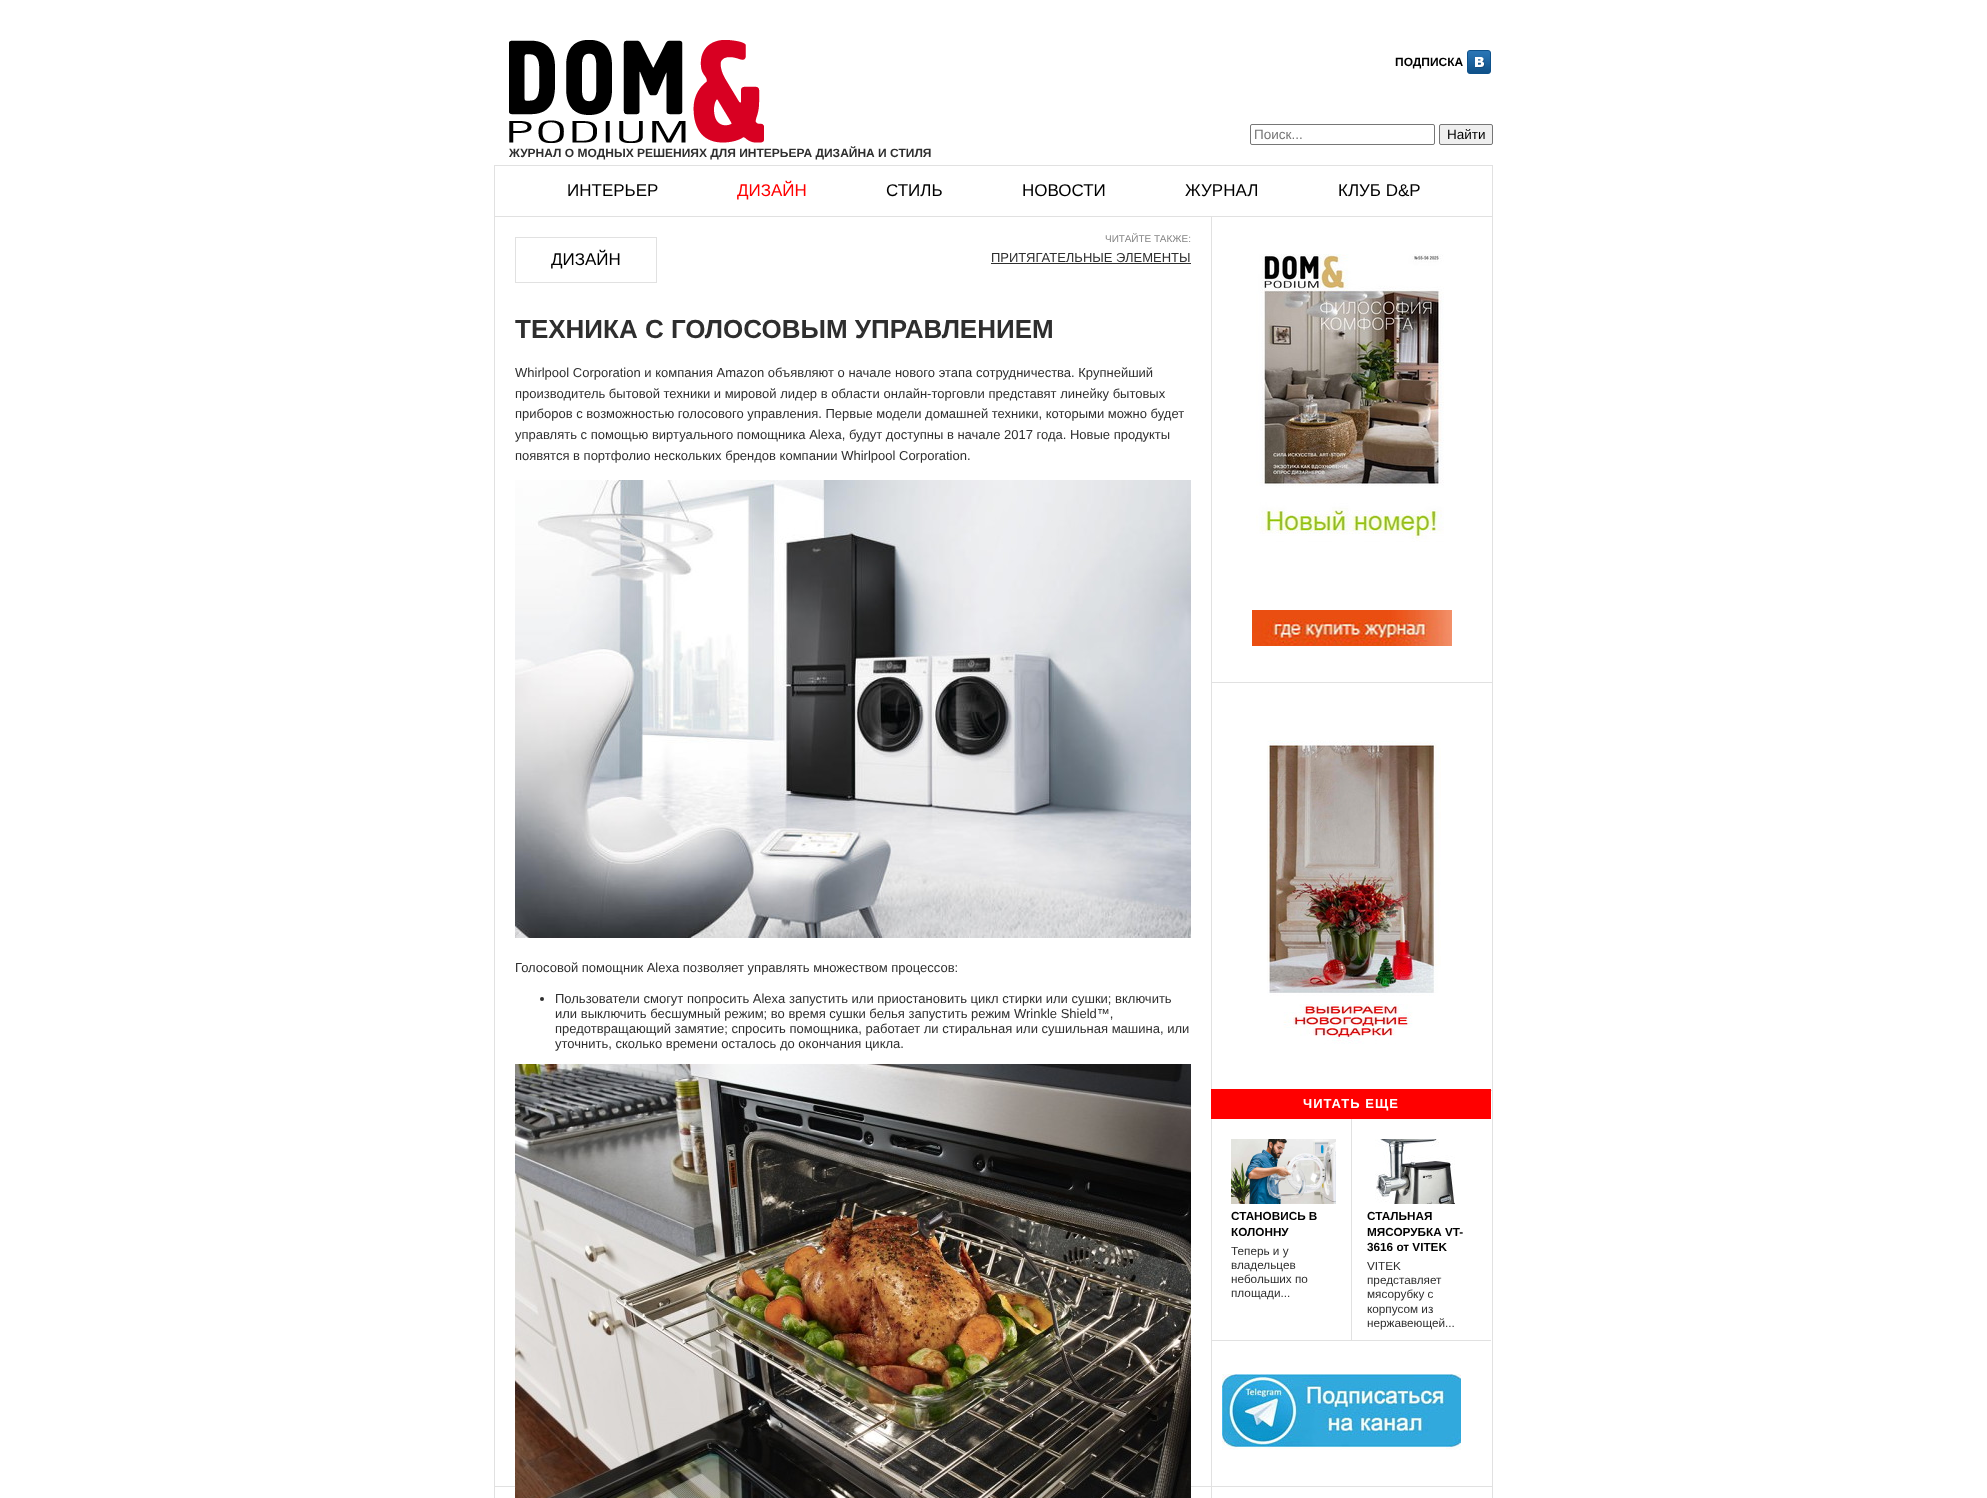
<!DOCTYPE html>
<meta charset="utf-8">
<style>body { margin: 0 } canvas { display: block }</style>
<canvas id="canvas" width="1987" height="1498"></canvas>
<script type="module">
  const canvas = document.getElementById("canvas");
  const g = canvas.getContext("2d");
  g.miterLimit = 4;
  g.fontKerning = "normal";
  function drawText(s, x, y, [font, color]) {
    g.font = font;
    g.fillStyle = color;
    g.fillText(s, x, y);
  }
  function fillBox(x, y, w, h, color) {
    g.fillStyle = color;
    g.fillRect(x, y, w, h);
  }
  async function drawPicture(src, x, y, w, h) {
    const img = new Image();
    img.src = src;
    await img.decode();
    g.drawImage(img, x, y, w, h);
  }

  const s1 = ["bold 12px Liberation Sans", "#000000"];
  const s2 = ["13.5px Liberation Sans", "#757575"];
  const s3 = ["13.5px Liberation Sans", "#000000"];
  const s4 = ["bold 12px Liberation Sans", "#2E2E2E"];
  const s5 = ["17px Liberation Sans", "#000000"];
  const s6 = ["17px Liberation Sans", "#FF0000"];
  const s7 = ["10px Liberation Sans", "#848484"];
  const s8 = ["13px Liberation Sans", "#2E2E2E"];
  const s9 = ["bold 26px Liberation Sans", "#2E2E2E"];
  const s10 = ["bold 13px Liberation Sans", "#FFFFFF"];
  const s11 = ["bold 11.75px Liberation Sans", "#000000"];
  const s12 = ["11.75px Liberation Sans", "#2E2E2E"];

  fillBox(0, 0, 1987, 1498, "#FFFFFF");
  drawText("ПОДПИСКА", 1395, 66, s1);
  await drawPicture("pic1.png", 1467, 50, 24, 24);
  g.beginPath();
  g.roundRect(1250.5, 124.5, 184, 20, 1.5);
  g.strokeStyle = "#767676";
  g.stroke();
  drawText("Поиск...", 1254, 139, s2);
  g.fillStyle = "#EFEFEF";
  g.beginPath();
  g.roundRect(1439.5, 124.5, 53, 20, 1.5);
  g.fill();
  g.stroke();
  drawText("Найти", 1447, 139, s3);
  await drawPicture("pic2.png", 509, 40, 255, 103);
  drawText("ЖУРНАЛ О МОДНЫХ РЕШЕНИЯХ ДЛЯ ИНТЕРЬЕРА ДИЗАЙНА И СТИЛЯ", 509, 157, s4);
  fillBox(494, 165, 999, 1, "#E1E1E1");
  fillBox(1492, 165, 1, 51, "#E1E1E1");
  fillBox(494, 165, 1, 51, "#E1E1E1");
  drawText("ИНТЕРЬЕР", 567, 196, s5);
  drawText("ДИЗАЙН", 737, 196, s6);
  drawText("СТИЛЬ", 886, 196, s5);
  drawText("НОВОСТИ", 1022, 196, s5);
  drawText("ЖУРНАЛ", 1185, 196, s5);
  drawText("КЛУБ D&P", 1338, 196, s5);
  g.strokeStyle = "#E1E1E1";
  g.strokeRect(494.5, 216.5, 998, 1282);
  fillBox(495, 1486, 997, 1, "#E1E1E1");
  g.save();
  g.beginPath();
  g.rect(495, 217, 997, 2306);
  g.clip();
  g.strokeRect(494.5, 216.5, 717, 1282);
  g.restore();
  g.strokeRect(515.5, 237.5, 141, 45);
  drawText("ДИЗАЙН", 551, 265, s5);
  drawText("ЧИТАЙТЕ ТАКЖЕ:", 1105, 242, s7);
  drawText("ПРИТЯГАТЕЛЬНЫЕ ЭЛЕМЕНТЫ", 991, 262, s8);
  fillBox(991, 263, 200, 1, "#2E2E2E");
  drawText("ТЕХНИКА С ГОЛОСОВЫМ УПРАВЛЕНИЕМ", 515, 338, s9);
  drawText("Whirlpool Corporation и компания Amazon объявляют о начале нового этапа сотрудничества. Крупнейший", 515, 377, s8);
  drawText("производитель бытовой техники и мировой лидер в области онлайн-торговли представят линейку бытовых", 515, 398, s8);
  drawText("приборов с возможностью голосового управления. Первые модели домашней техники, которыми можно будет", 515, 418, s8);
  drawText("управлять с помощью виртуального помощника Alexa, будут доступны в начале 2017 года. Новые продукты", 515, 439, s8);
  drawText("появятся в портфолио нескольких брендов компании Whirlpool Corporation.", 515, 460, s8);
  await drawPicture("pic3.png", 515, 480, 676, 458);
  drawText("Голосовой помощник Alexa позволяет управлять множеством процессов:", 515, 972, s8);
  g.beginPath();
  g.arc(542, 999, 2, 0, Math.PI * 2);
  g.fill();
  drawText("Пользователи смогут попросить Alexa запустить или приостановить цикл стирки или сушки; включить", 555, 1003, s8);
  drawText("или выключить бесшумный режим; во время сушки белья запустить режим Wrinkle Shield™,", 555, 1018, s8);
  drawText("предотвращающий замятие; спросить помощника, работает ли стиральная или сушильная машина, или", 555, 1033, s8);
  drawText("уточнить, сколько времени осталось до окончания цикла.", 555, 1048, s8);
  await drawPicture("pic4.png", 515, 1064, 676, 434);
  await drawPicture("pic5.png", 1256, 254, 188, 288);
  fillBox(1212, 682, 280, 1, "#E1E1E1");
  await drawPicture("pic6.png", 1252, 610, 200, 36);
  fillBox(1491, 1090, 1, 1, "#E1E1E1");
  await drawPicture("pic7.png", 1267, 740, 174, 304);
  fillBox(1211, 1340, 280, 1, "#E1E1E1");
  fillBox(1211, 1089, 280, 30, "#FF0000");
  g.letterSpacing = "1px";
  drawText("ЧИТАТЬ ЕЩЕ", 1303, 1108, s10);
  await drawPicture("pic8.png", 1231, 1139, 105, 65);
  g.letterSpacing = "0px";
  drawText("СТАНОВИСЬ В", 1231, 1220, s11);
  drawText("КОЛОННУ", 1231, 1236, s11);
  drawText("Теперь и у", 1231, 1255, s12);
  drawText("владельцев", 1231, 1269, s12);
  drawText("небольших по", 1231, 1283, s12);
  drawText("площади...", 1231, 1297, s12);
  fillBox(1351, 1119, 1, 221, "#E1E1E1");
  await drawPicture("pic9.png", 1375, 1139, 80, 65);
  drawText("СТАЛЬНАЯ", 1367, 1220, s11);
  drawText("МЯСОРУБКА VT-", 1367, 1236, s11);
  drawText("3616 от VITEK", 1367, 1251, s11);
  drawText("VITEK", 1367, 1270, s12);
  drawText("представляет", 1367, 1284, s12);
  drawText("мясорубку с", 1367, 1298, s12);
  drawText("корпусом из", 1367, 1313, s12);
  drawText("нержавеющей...", 1367, 1327, s12);
  await drawPicture("pic10.png", 1222, 1374, 239, 76);
</script>
